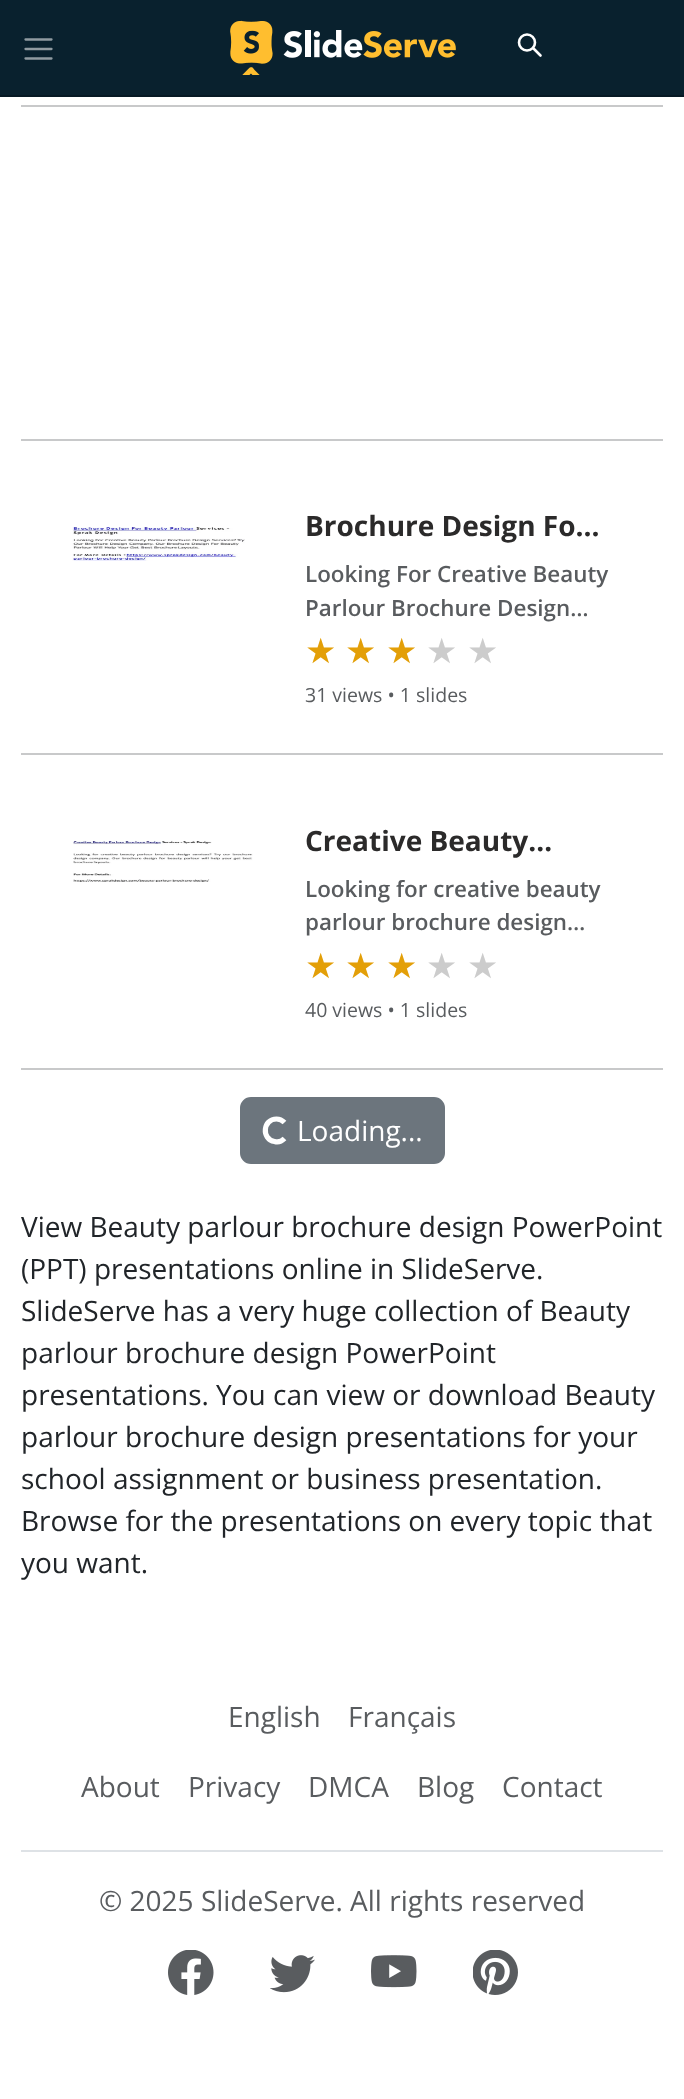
<!DOCTYPE html>
<meta charset="utf-8">
<style>body { margin: 0 } canvas { display: block }</style>
<canvas id="canvas" width="684" height="2099"></canvas>
<script type="module">
  const canvas = document.getElementById("canvas");
  const g = canvas.getContext("2d");
  g.miterLimit = 4;
  g.fontKerning = "normal";
  function drawText(s, x, y, [font, color]) {
    g.font = font;
    g.fillStyle = color;
    g.fillText(s, x, y);
  }
  function fillBox(x, y, w, h, color) {
    g.fillStyle = color;
    g.fillRect(x, y, w, h);
  }
  async function drawPicture(src, x, y, w, h) {
    const img = new Image();
    img.src = src;
    await img.decode();
    g.drawImage(img, x, y, w, h);
  }

  const s1 = ["bold 28px Open Sans", "#2B2A2A"];
  const s2 = ["600 22.4px Open Sans", "#595C5F"];
  const s3 = ["35px DejaVu Sans", "#E39F08"];
  const s4 = ["35px DejaVu Sans", "#CCCCCC"];
  const s5 = ["19.5px Open Sans", "#595C5F"];
  const s6 = ["28px Open Sans", "#FFFFFF"];
  const s7 = ["28px Open Sans", "#212529"];
  const s8 = ["28px Open Sans", "#595C5F"];

  fillBox(0, 0, 684, 2099, "#FFFFFF");
  fillBox(0, 0, 684, 95, "#09212E");
  fillBox(0, 95, 684, 2, "#061924");
  g.beginPath();
  g.moveTo(25.5, 39.5);
  g.lineTo(51.5, 39.5);
  g.moveTo(25.5, 49);
  g.lineTo(51.5, 49);
  g.moveTo(25.5, 58.5);
  g.lineTo(51.5, 58.5);
  g.strokeStyle = "#909BA1";
  g.lineWidth = 2.3;
  g.lineCap = "round";
  g.stroke();
  await drawPicture("pic1.png", 230, 20, 226, 55);
  g.beginPath();
  g.arc(527, 42.5, 8, 0, Math.PI * 2);
  g.strokeStyle = "#FFFFFF";
  g.lineWidth = 2.6;
  g.stroke();
  g.beginPath();
  g.moveTo(540.5, 55.5);
  g.lineTo(533.5, 48.5);
  g.lineJoin = "round";
  g.stroke();
  fillBox(21, 105, 642, 2, "#C8C9CA");
  fillBox(21, 439, 642, 2, "#C8C9CA");
  await drawPicture("pic2.png", 72, 527, 173, 34);
  drawText("Brochure Design Fo...", 305, 536, s1);
  drawText("Looking For Creative Beauty", 305, 582, s2);
  drawText("Parlour Brochure Design…", 305, 616, s2);
  drawText("★", 305, 663, s3);
  drawText("★", 345, 663, s3);
  drawText("★", 386, 663, s3);
  drawText("★", 426, 663, s4);
  drawText("★", 467, 663, s4);
  drawText("31 views • 1 slides", 305, 702, s5);
  fillBox(21, 753, 642, 2, "#C8C9CA");
  await drawPicture("pic3.png", 73, 840, 180, 42);
  drawText("Creative Beauty…", 305, 851, s1);
  drawText("Looking for creative beauty", 305, 897, s2);
  drawText("parlour brochure design…", 305, 930, s2);
  drawText("★", 305, 978, s3);
  drawText("★", 345, 978, s3);
  drawText("★", 386, 978, s3);
  drawText("★", 426, 978, s4);
  drawText("★", 467, 978, s4);
  drawText("40 views • 1 slides", 305, 1017, s5);
  fillBox(21, 1068, 642, 2, "#C8C9CA");
  g.fillStyle = "#6C757D";
  g.beginPath();
  g.roundRect(241, 1098, 203, 65, 10);
  g.fill();
  g.strokeStyle = "#6C757D";
  g.lineWidth = 2;
  g.lineJoin = "miter";
  g.stroke();
  g.beginPath();
  g.moveTo(284.5, 1138.5);
  g.bezierCurveTo(282, 1141, 278, 1142.5, 274.5, 1141.5);
  g.bezierCurveTo(261, 1139, 263, 1119, 276.5, 1119);
  g.bezierCurveTo(279.5, 1119, 282.5, 1120.5, 284.5, 1122.5);
  g.strokeStyle = "#FFFFFF";
  g.lineWidth = 5.2;
  g.lineCap = "butt";
  g.stroke();
  drawText("Loading...", 297, 1141, s6);
  drawText("View Beauty parlour brochure design PowerPoint", 21, 1237, s7);
  drawText("(PPT) presentations online in SlideServe.", 21, 1279, s7);
  drawText("SlideServe has a very huge collection of Beauty", 21, 1321, s7);
  drawText("parlour brochure design PowerPoint", 21, 1363, s7);
  drawText("presentations. You can view or download Beauty", 21, 1405, s7);
  drawText("parlour brochure design presentations for your", 21, 1447, s7);
  drawText("school assignment or business presentation.", 21, 1489, s7);
  drawText("Browse for the presentations on every topic that", 21, 1531, s7);
  drawText("you want.", 21, 1573, s7);
  drawText("English", 228, 1727, s8);
  drawText("Français", 348, 1727, s8);
  fillBox(21, 1850, 642, 2, "#DEE2E6");
  drawText("About", 81, 1797, s8);
  drawText("Privacy", 188, 1797, s8);
  drawText("DMCA", 308, 1797, s8);
  drawText("Blog", 417, 1797, s8);
  drawText("Contact", 502, 1797, s8);
  drawText("© 2025 SlideServe. All rights reserved", 99, 1911, s8);
  await drawPicture("pic4.png", 168, 1950, 46, 45);
  await drawPicture("pic5.png", 270, 1955, 45, 38);
  await drawPicture("pic6.png", 371, 1955, 46, 33);
  await drawPicture("pic7.png", 473, 1950, 45, 45);
</script>
